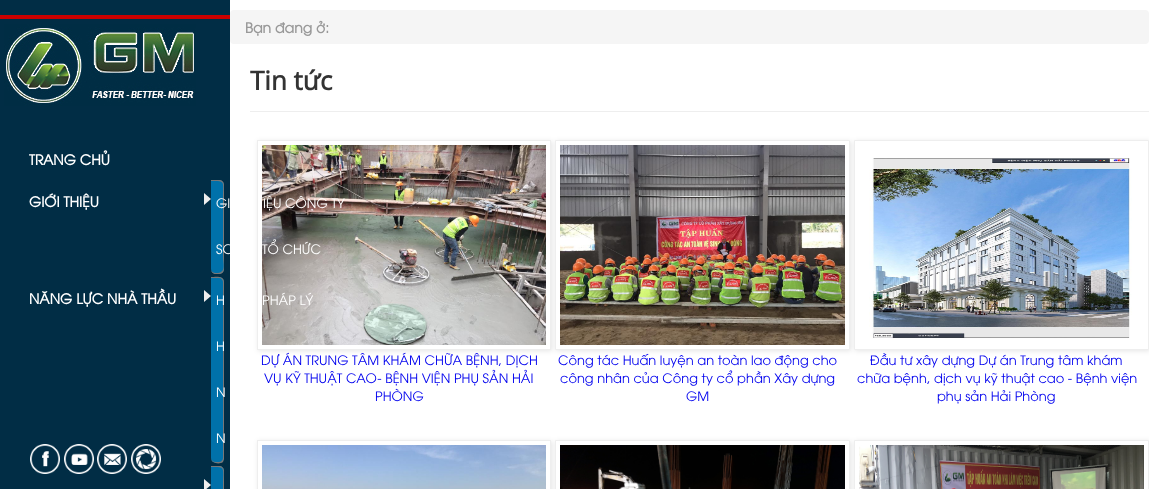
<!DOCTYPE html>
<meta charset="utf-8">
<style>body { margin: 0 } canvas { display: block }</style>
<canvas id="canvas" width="1149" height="489"></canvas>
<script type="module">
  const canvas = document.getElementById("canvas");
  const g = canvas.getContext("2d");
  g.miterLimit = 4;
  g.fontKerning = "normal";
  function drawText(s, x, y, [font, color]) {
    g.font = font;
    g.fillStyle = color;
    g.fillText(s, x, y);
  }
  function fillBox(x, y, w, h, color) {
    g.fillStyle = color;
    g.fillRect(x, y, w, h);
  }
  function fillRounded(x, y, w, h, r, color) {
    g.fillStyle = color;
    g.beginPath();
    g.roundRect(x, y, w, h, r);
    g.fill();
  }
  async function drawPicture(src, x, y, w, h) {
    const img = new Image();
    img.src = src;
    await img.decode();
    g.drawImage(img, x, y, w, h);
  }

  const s1 = ["bold 14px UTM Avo", "#FFFFFF"];
  const s2 = ["13px UTM Avo", "#FFFFFF"];
  const s3 = ["bold 14px UTM Avo", "#999999"];
  const s4 = ["bold 26px Open Sans", "#333333"];
  const s5 = ["13px UTM Avo", "#0000EE"];

  fillBox(0, 0, 1149, 489, "#FFFFFF");
  fillBox(0, 0, 230, 489, "#012D45");
  await drawPicture("pic1.png", 4, 24, 192, 82);
  fillBox(0, 15, 230, 4, "#CC0000");
  drawText("TRANG CHỦ", 29, 165, s1);
  drawText("GIỚI THIỆU", 29, 207, s1);
  g.fillStyle = "#EEEEEE";
  g.beginPath();
  g.moveTo(204, 205);
  g.lineTo(204, 193);
  g.lineTo(211, 199);
  g.closePath();
  g.fill();
  g.fillStyle = "#0071AA";
  g.beginPath();
  g.roundRect(211, 180, 13, 94, [0, 5, 5, 5]);
  g.fill();
  g.fillStyle = "#777777";
  g.beginPath();
  g.moveTo(211, 180);
  g.lineTo(219, 180);
  g.bezierCurveTo(222, 180, 224, 182, 224, 185);
  g.lineTo(224, 269);
  g.bezierCurveTo(224, 272, 222, 274, 219, 274);
  g.lineTo(216, 274);
  g.bezierCurveTo(213, 274, 211, 272, 211, 269);
  g.closePath();
  g.moveTo(211, 181);
  g.bezierCurveTo(226, 181, 223, 181, 223, 199);
  g.lineTo(223, 255);
  g.bezierCurveTo(223, 265, 227, 273, 216, 273);
  g.bezierCurveTo(214, 273, 211, 272, 211, 269);
  g.closePath();
  g.fill("evenodd");
  drawText("GI", 216, 208, s2);
  g.save();
  g.beginPath();
  g.moveTo(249, 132);
  g.lineTo(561, 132);
  g.lineTo(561, 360);
  g.lineTo(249, 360);
  g.closePath();
  g.moveTo(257, 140);
  g.lineTo(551, 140);
  g.lineTo(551, 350);
  g.lineTo(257, 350);
  g.closePath();
  g.clip("evenodd");
  g.fillStyle = "rgba(0, 0, 0, 0.1)";
  g.filter = "blur(2.5px)";
  g.beginPath();
  g.rect(258, 141, 294, 210);
  g.fill();
  g.filter = "none";
  g.restore();
  g.strokeStyle = "#EEEEEE";
  g.strokeRect(257.5, 140.5, 293, 209);
  await drawPicture("pic6.png", 262, 145, 284, 200);
  drawText("IỆU CÔNG TY", 263, 208, s2);
  drawText("SƠ", 216, 254, s2);
  drawText("TỔ CHỨC", 262, 254, s2);
  drawText("NĂNG LỰC NHÀ THẦU", 29, 304, s1);
  g.fillStyle = "#EEEEEE";
  g.beginPath();
  g.moveTo(204, 302);
  g.lineTo(204, 290);
  g.lineTo(211, 296);
  g.closePath();
  g.fill();
  g.fillStyle = "#0071AA";
  g.beginPath();
  g.roundRect(211, 277, 13, 186, [0, 5, 5, 5]);
  g.fill();
  g.fillStyle = "#777777";
  g.beginPath();
  g.moveTo(211, 277);
  g.bezierCurveTo(215, 277, 224, 275, 224, 282);
  g.lineTo(224, 459);
  g.lineTo(223, 462);
  g.bezierCurveTo(219, 465, 211, 463, 211, 458);
  g.closePath();
  g.moveTo(211, 278);
  g.lineTo(219, 278);
  g.bezierCurveTo(221, 278, 223, 280, 223, 282);
  g.lineTo(223, 458);
  g.bezierCurveTo(223, 460, 221, 462, 219, 462);
  g.lineTo(216, 462);
  g.bezierCurveTo(213, 462, 211, 460, 211, 458);
  g.closePath();
  g.fill("evenodd");
  drawText("H", 216, 305, s2);
  drawText("PHÁP LÝ", 262, 305, s2);
  drawText("H", 216, 351, s2);
  drawText("N", 216, 397, s2);
  drawText("N", 216, 443, s2);
  g.fillStyle = "#EEEEEE";
  g.beginPath();
  g.moveTo(204, 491);
  g.lineTo(204, 479);
  g.lineTo(211, 485);
  g.closePath();
  g.fill();
  g.fillStyle = "#0071AA";
  g.beginPath();
  g.moveTo(211, 466);
  g.lineTo(219, 466);
  g.bezierCurveTo(222, 466, 224, 468, 224, 471);
  g.lineTo(224, 489);
  g.bezierCurveTo(224, 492, 222, 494, 219, 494);
  g.lineTo(216, 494);
  g.bezierCurveTo(213, 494, 211, 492, 211, 489);
  g.closePath();
  g.fill();
  g.fillStyle = "#777777";
  g.beginPath();
  g.moveTo(211, 466);
  g.lineTo(219, 466);
  g.bezierCurveTo(222, 466, 224, 468, 224, 471);
  g.lineTo(224, 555);
  g.bezierCurveTo(224, 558, 222, 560, 219, 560);
  g.lineTo(216, 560);
  g.bezierCurveTo(213, 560, 211, 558, 211, 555);
  g.closePath();
  g.moveTo(211, 467);
  g.bezierCurveTo(226, 467, 223, 467, 223, 485);
  g.lineTo(223, 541);
  g.bezierCurveTo(223, 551, 227, 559, 216, 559);
  g.bezierCurveTo(214, 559, 211, 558, 211, 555);
  g.closePath();
  g.fill("evenodd");
  await drawPicture("pic2.png", 30, 444, 30, 30);
  await drawPicture("pic3.png", 64, 444, 30, 30);
  await drawPicture("pic4.png", 97, 444, 30, 30);
  await drawPicture("pic5.png", 131, 444, 30, 30);
  fillRounded(230, 10, 919, 34, 4, "#F5F5F5");
  drawText("Bạn đang ở:", 245, 33, s3);
  fillBox(250, 111, 899, 1, "#EEEEEE");
  drawText("Tin tức", 250, 90, s4);
  drawText("DỰ ÁN TRUNG TÂM KHÁM CHỮA BỆNH, DỊCH", 261, 365, s5);
  drawText("VỤ KỸ THUẬT CAO- BỆNH VIỆN PHỤ SẢN HẢI", 264, 383, s5);
  drawText("PHÒNG", 375, 401, s5);
  g.fillStyle = "rgba(0, 0, 0, 0.1)";
  g.filter = "blur(2.5px)";
  g.beginPath();
  g.rect(556, 141, 295, 210);
  g.fill();
  g.filter = "none";
  g.fillStyle = "#FFFFFF";
  g.beginPath();
  g.rect(555.5, 140.5, 294, 209);
  g.fill();
  g.stroke();
  await drawPicture("pic7.png", 560, 145, 285, 200);
  drawText("Công tác Huấn luyện an toàn lao động cho", 558, 365, s5);
  drawText("công nhân của Công ty cổ phần Xây dựng", 560, 383, s5);
  drawText("GM", 686, 401, s5);
  g.fillStyle = "rgba(0, 0, 0, 0.1)";
  g.filter = "blur(2.5px)";
  g.beginPath();
  g.rect(855, 141, 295, 210);
  g.fill();
  g.filter = "none";
  g.fillStyle = "#FFFFFF";
  g.beginPath();
  g.rect(854.5, 140.5, 294, 209);
  g.fill();
  g.stroke();
  await drawPicture("pic8.png", 869, 158, 263, 182);
  drawText("Đầu tư xây dựng Dự án Trung tâm khám", 870, 365, s5);
  drawText("chữa bệnh, dịch vụ kỹ thuật cao - Bệnh viện", 857, 383, s5);
  drawText("phụ sản Hải Phòng", 937, 401, s5);
  g.save();
  g.beginPath();
  g.moveTo(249, 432);
  g.lineTo(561, 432);
  g.lineTo(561, 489);
  g.lineTo(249, 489);
  g.closePath();
  g.moveTo(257, 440);
  g.lineTo(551, 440);
  g.lineTo(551, 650);
  g.lineTo(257, 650);
  g.closePath();
  g.clip("evenodd");
  g.fillStyle = "rgba(0, 0, 0, 0.1)";
  g.filter = "blur(2.5px)";
  g.beginPath();
  g.rect(258, 441, 294, 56);
  g.fill();
  g.filter = "none";
  g.restore();
  g.strokeRect(257.5, 440.5, 293, 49);
  await drawPicture("pic9.png", 262, 445, 284, 44);
  g.fillStyle = "rgba(0, 0, 0, 0.1)";
  g.filter = "blur(2.5px)";
  g.beginPath();
  g.rect(556, 441, 295, 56);
  g.fill();
  g.filter = "none";
  g.fillStyle = "#FFFFFF";
  g.beginPath();
  g.rect(555.5, 440.5, 294, 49);
  g.fill();
  g.stroke();
  await drawPicture("pic10.png", 560, 445, 285, 44);
  g.fillStyle = "rgba(0, 0, 0, 0.1)";
  g.filter = "blur(2.5px)";
  g.beginPath();
  g.rect(855, 441, 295, 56);
  g.fill();
  g.filter = "none";
  g.fillStyle = "#FFFFFF";
  g.beginPath();
  g.rect(854.5, 440.5, 294, 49);
  g.fill();
  g.stroke();
  await drawPicture("pic11.png", 859, 445, 285, 44);
</script>
